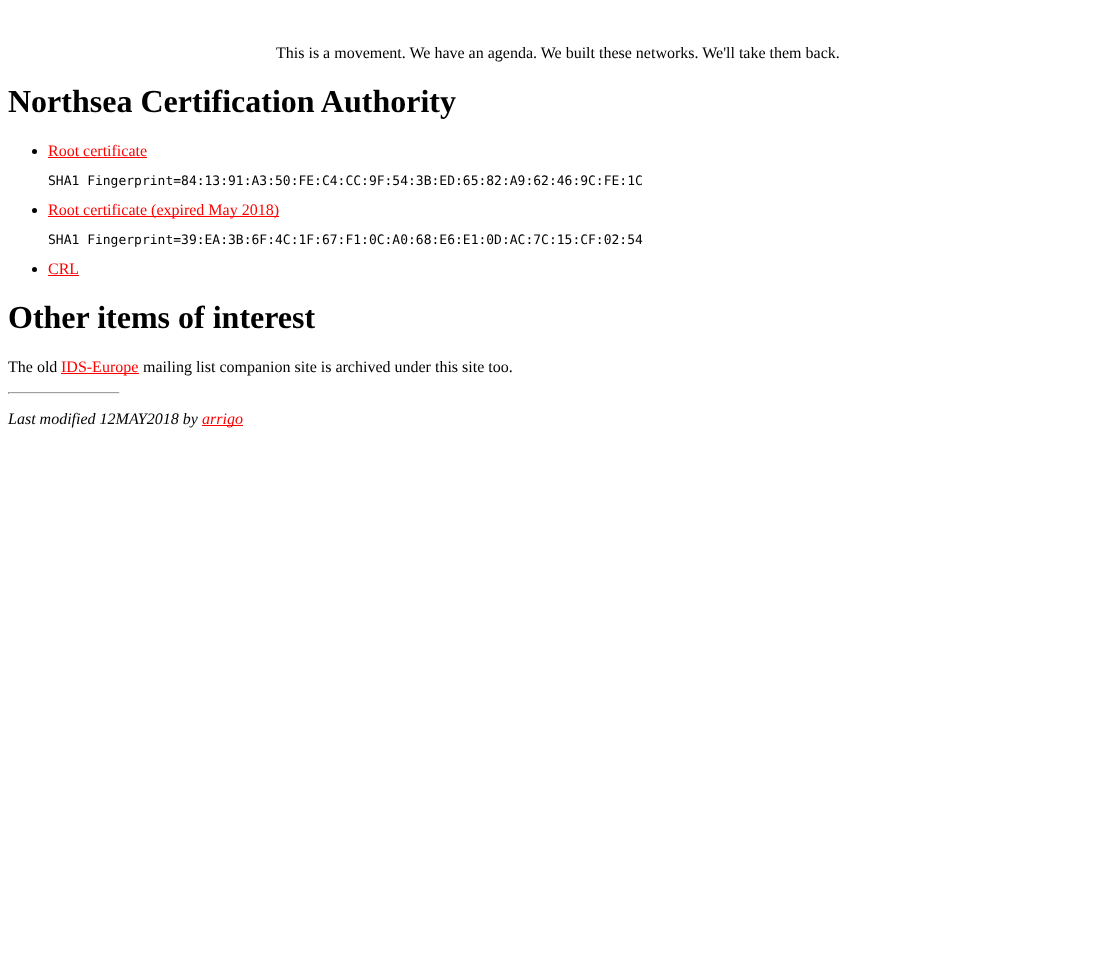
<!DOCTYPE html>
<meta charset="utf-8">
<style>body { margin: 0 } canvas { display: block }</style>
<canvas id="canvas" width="1116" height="979"></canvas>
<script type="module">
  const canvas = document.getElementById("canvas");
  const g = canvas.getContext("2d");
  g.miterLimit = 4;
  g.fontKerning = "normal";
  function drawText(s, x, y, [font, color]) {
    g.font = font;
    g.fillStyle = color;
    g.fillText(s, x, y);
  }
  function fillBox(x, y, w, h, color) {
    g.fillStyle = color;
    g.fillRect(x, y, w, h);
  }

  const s1 = ["16px Liberation Serif", "#000000"];
  const s2 = ["bold 32px Liberation Serif", "#000000"];
  const s3 = ["16px Liberation Serif", "#FF0000"];
  const s4 = ["13px DejaVu Sans Mono", "#000000"];
  const s5 = ["italic 16px Liberation Serif", "#000000"];
  const s6 = ["italic 16px Liberation Serif", "#FF0000"];

  fillBox(0, 0, 1116, 979, "#FFFFFF");
  drawText("This is a movement. We have an agenda. We built these networks. We'll take them back.", 276, 58, s1);
  drawText("Northsea Certification Authority", 8, 112, s2);
  g.beginPath();
  g.arc(34.5, 151.5, 2.5, 0, Math.PI * 2);
  g.fill();
  drawText("Root certificate", 48, 156, s3);
  fillBox(48, 157, 99, 1, "#FF0000");
  drawText("SHA1 Fingerprint=84:13:91:A3:50:FE:C4:CC:9F:54:3B:ED:65:82:A9:62:46:9C:FE:1C", 48, 185, s4);
  g.beginPath();
  g.arc(34.5, 210.5, 2.5, 0, Math.PI * 2);
  g.fill();
  fillBox(48, 216, 231, 1, "#FF0000");
  drawText("Root certificate (expired May 2018)", 48, 215, s3);
  drawText("SHA1 Fingerprint=39:EA:3B:6F:4C:1F:67:F1:0C:A0:68:E6:E1:0D:AC:7C:15:CF:02:54", 48, 244, s4);
  g.beginPath();
  g.arc(34.5, 269.5, 2.5, 0, Math.PI * 2);
  g.fill();
  drawText("CRL", 48, 274, s3);
  fillBox(48, 275, 31, 1, "#FF0000");
  drawText("Other items of interest", 8, 328, s2);
  drawText("The old", 8, 372, s1);
  fillBox(61, 373, 78, 1, "#FF0000");
  drawText("IDS-Europe", 61, 372, s3);
  drawText("mailing list companion site is archived under this site too.", 143, 372, s1);
  fillBox(8, 392, 112, 1, "#9F9F9F");
  fillBox(119, 392, 1, 2, "#EEEEEE");
  fillBox(8, 393, 112, 1, "#EEEEEE");
  fillBox(8, 392, 1, 2, "#9F9F9F");
  drawText("Last modified 12MAY2018 by", 8, 424, s5);
  fillBox(202, 425, 41, 1, "#FF0000");
  drawText("arrigo", 202, 424, s6);
</script>
